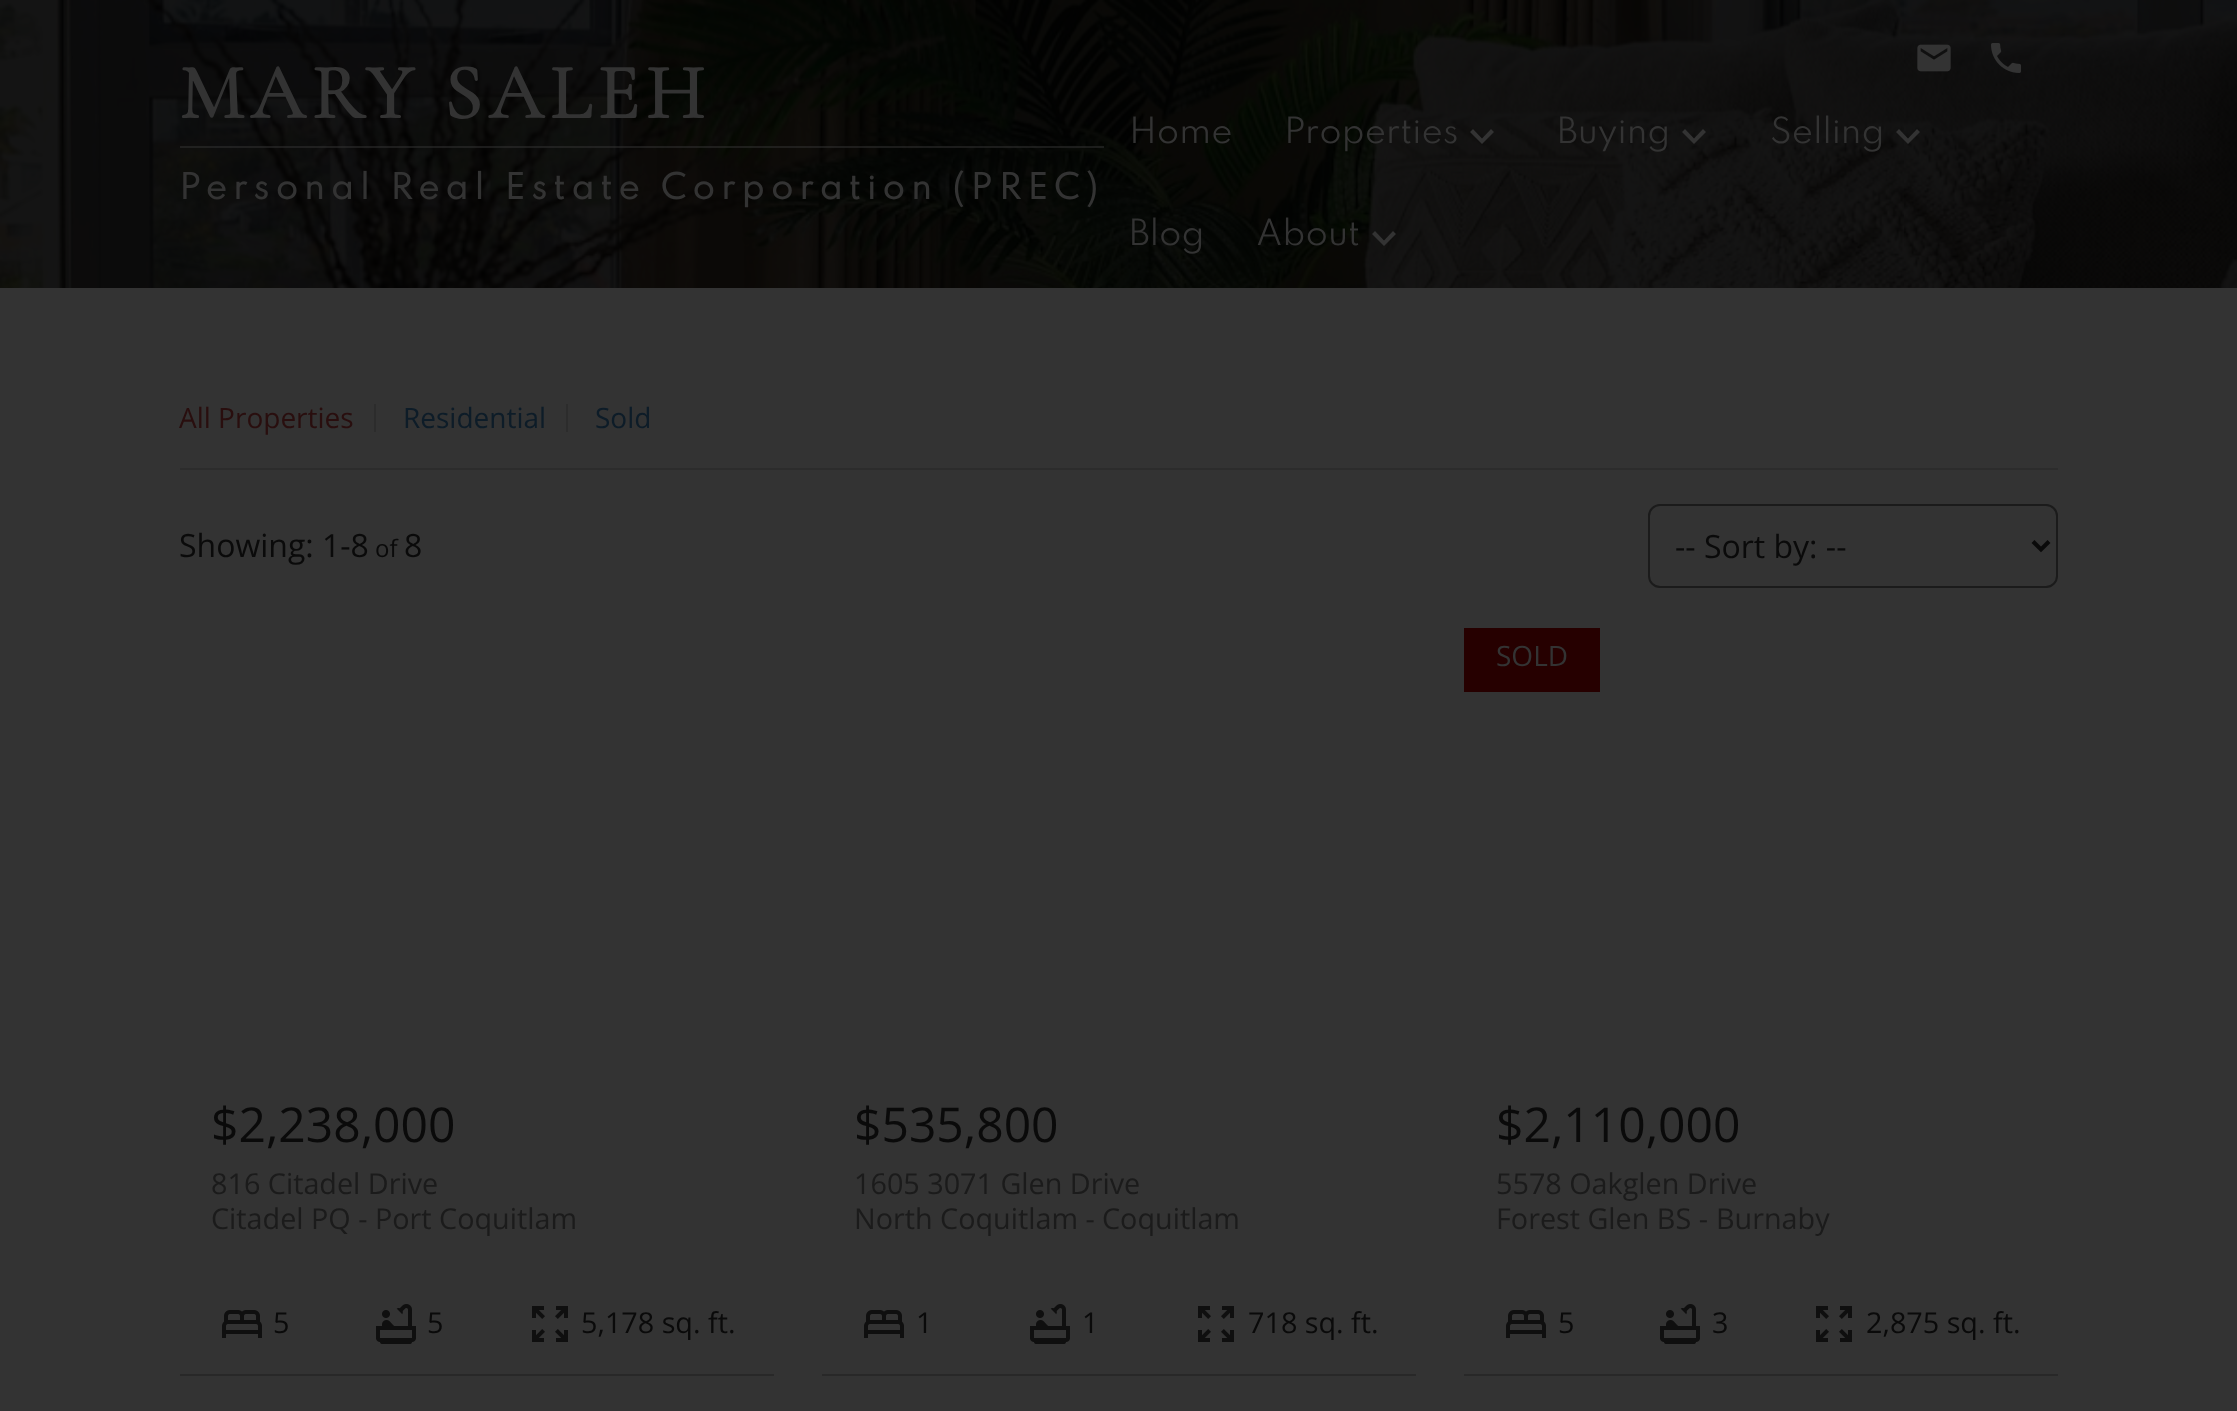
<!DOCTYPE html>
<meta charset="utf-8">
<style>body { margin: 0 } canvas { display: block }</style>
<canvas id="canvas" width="2237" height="1411"></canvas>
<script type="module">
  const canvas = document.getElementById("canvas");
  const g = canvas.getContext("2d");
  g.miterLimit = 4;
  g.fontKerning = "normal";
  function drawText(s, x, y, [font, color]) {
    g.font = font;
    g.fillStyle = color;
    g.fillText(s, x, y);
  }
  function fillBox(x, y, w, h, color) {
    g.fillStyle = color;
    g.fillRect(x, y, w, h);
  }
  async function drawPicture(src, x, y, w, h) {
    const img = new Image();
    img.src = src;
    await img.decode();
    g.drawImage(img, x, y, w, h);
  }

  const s1 = ["bold 77.75px Cormorant Garamond", "#333333"];
  const s2 = ["bold 31.7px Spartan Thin", "#333333"];
  const s3 = ["32px Spartan Thin", "#333333"];
  const s4 = ["28px Open Sans", "#290E0E"];
  const s5 = ["28px Open Sans", "#0D1C28"];
  const s6 = ["32px Open Sans", "#0A0A0A"];
  const s7 = ["24px Open Sans", "#0A0A0A"];
  const s8 = ["48px Open Sans", "#0A0A0A"];
  const s9 = ["28.75px Open Sans", "#1B1B1B"];
  const s10 = ["28.75px Open Sans", "#0A0A0A"];
  const s11 = ["28px Open Sans", "#333333"];

  fillBox(0, 0, 2237, 1411, "#333333");
  await drawPicture("pic1.png", 0, 0, 2237, 288);
  fillBox(180, 146, 924, 2, "rgba(51, 51, 51, 0.5)");
  g.letterSpacing = "6.4px";
  drawText("MARY SALEH", 179, 118, s1);
  drawText("Personal Real Estate Corporation (PREC)", 179, 199, s2);
  await drawPicture("pic2.png", 1917, 44, 34, 28);
  await drawPicture("pic3.png", 1991, 43, 30, 30);
  g.letterSpacing = "0px";
  drawText("Home", 1129, 143, s3);
  drawText("Properties", 1284, 143, s3);
  g.beginPath();
  g.moveTo(1491, 129);
  g.lineTo(1482, 138.5);
  g.lineTo(1473, 129);
  g.lineTo(1470, 132);
  g.lineTo(1482, 144);
  g.lineTo(1494, 132);
  g.closePath();
  g.fill();
  drawText("Buying", 1557, 143, s3);
  g.beginPath();
  g.moveTo(1703, 129);
  g.lineTo(1694, 138.5);
  g.lineTo(1685, 129);
  g.lineTo(1682, 132);
  g.lineTo(1694, 144);
  g.lineTo(1706, 132);
  g.closePath();
  g.fill();
  drawText("Selling", 1770, 143, s3);
  g.beginPath();
  g.moveTo(1917, 129);
  g.lineTo(1908, 138.5);
  g.lineTo(1899, 129);
  g.lineTo(1896, 132);
  g.lineTo(1908, 144);
  g.lineTo(1920, 132);
  g.closePath();
  g.fill();
  drawText("Blog", 1129, 245, s3);
  drawText("About", 1256, 245, s3);
  g.beginPath();
  g.moveTo(1393, 231);
  g.lineTo(1384, 240.5);
  g.lineTo(1375, 231);
  g.lineTo(1372, 234);
  g.lineTo(1384, 246);
  g.lineTo(1396, 234);
  g.closePath();
  g.fill();
  fillBox(374, 404, 2, 28, "#2C2C2C");
  drawText("All Properties", 179, 428, s4);
  fillBox(566, 404, 2, 28, "#2C2C2C");
  drawText("Residential", 403, 428, s5);
  drawText("Sold", 595, 428, s5);
  fillBox(180, 468, 1878, 2, "#2C2C2C");
  drawText("Showing: 1-8", 179, 557, s6);
  drawText("of", 375, 557, s7);
  drawText("8", 404, 557, s6);
  g.beginPath();
  g.roundRect(1649, 505, 408, 82, 11);
  g.strokeStyle = "#1B1B1B";
  g.lineWidth = 2;
  g.stroke();
  g.beginPath();
  g.moveTo(2033, 541.5);
  g.lineTo(2041, 549.5);
  g.lineTo(2049, 541.5);
  g.strokeStyle = "#0A0A0A";
  g.lineWidth = 4;
  g.stroke();
  drawText("-- Sort by: --", 1675, 558, s6);
  drawText("$2,238,000", 211, 1142, s8);
  drawText("816 Citadel Drive", 211, 1194, s9);
  drawText("Citadel PQ -", 211, 1229, s9);
  drawText("Port Coquitlam", 375, 1229, s9);
  await drawPicture("pic4.png", 222, 1310, 40, 28);
  drawText("5", 273, 1333, s10);
  await drawPicture("pic5.png", 376, 1304, 40, 40);
  drawText("5", 427, 1333, s10);
  await drawPicture("pic6.png", 532, 1306, 36, 36);
  drawText("5,178 sq. ft.", 581, 1333, s10);
  fillBox(180, 1374, 594, 2, "#282828");
  drawText("$535,800", 854, 1142, s8);
  drawText("1605 3071 Glen Drive", 854, 1194, s9);
  drawText("North Coquitlam -", 854, 1229, s9);
  drawText("Coquitlam", 1102, 1229, s9);
  await drawPicture("pic4.png", 864, 1310, 40, 28);
  drawText("1", 916, 1333, s10);
  await drawPicture("pic5.png", 1030, 1304, 40, 40);
  drawText("1", 1082, 1333, s10);
  await drawPicture("pic6.png", 1198, 1306, 36, 36);
  drawText("718 sq. ft.", 1248, 1333, s10);
  fillBox(822, 1374, 594, 2, "#282828");
  fillBox(1464, 628, 136, 64, "#260000");
  drawText("SOLD", 1496, 666, s11);
  drawText("$2,110,000", 1496, 1142, s8);
  drawText("5578 Oakglen Drive", 1496, 1194, s9);
  drawText("Forest Glen BS -", 1496, 1229, s9);
  drawText("Burnaby", 1716, 1229, s9);
  await drawPicture("pic4.png", 1506, 1310, 40, 28);
  drawText("5", 1558, 1333, s10);
  await drawPicture("pic5.png", 1660, 1304, 40, 40);
  drawText("3", 1712, 1333, s10);
  await drawPicture("pic6.png", 1816, 1306, 36, 36);
  drawText("2,875 sq. ft.", 1866, 1333, s10);
  fillBox(1464, 1374, 594, 2, "#282828");
</script>
